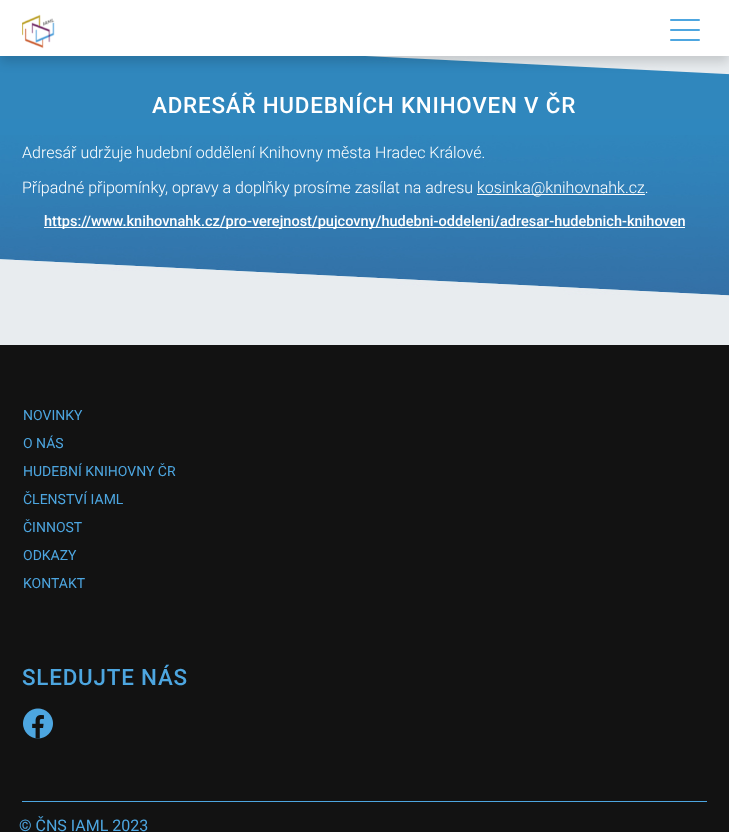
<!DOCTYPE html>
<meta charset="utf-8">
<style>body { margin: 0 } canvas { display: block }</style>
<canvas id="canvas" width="729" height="832"></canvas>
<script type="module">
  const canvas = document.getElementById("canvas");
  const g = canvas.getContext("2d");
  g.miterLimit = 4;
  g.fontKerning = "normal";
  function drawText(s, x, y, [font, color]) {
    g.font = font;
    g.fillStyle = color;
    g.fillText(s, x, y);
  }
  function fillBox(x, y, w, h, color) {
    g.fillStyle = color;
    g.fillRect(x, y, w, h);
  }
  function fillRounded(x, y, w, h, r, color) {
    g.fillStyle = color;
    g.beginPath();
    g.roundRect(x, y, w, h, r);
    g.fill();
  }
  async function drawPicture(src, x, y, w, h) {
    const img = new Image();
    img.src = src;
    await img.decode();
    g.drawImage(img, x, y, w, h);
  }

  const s1 = ["500 22.4px Roboto", "#FFFFFF"];
  const s2 = ["300 16px Roboto", "#FFFFFF"];
  const s3 = ["500 14.55px Roboto", "#FFFFFF"];
  const s4 = ["14px Roboto", "#4DA6E0"];
  const s5 = ["500 22.4px Roboto", "#4DA6E0"];
  const s6 = ["16px Roboto", "#4DA6E0"];

  fillBox(0, 0, 729, 832, "#2F87BE");
  await drawPicture("pic2.png", 0, 56, 729, 289);
  g.fillStyle = "rgba(0, 0, 0, 0.15)";
  g.filter = "blur(5.5px)";
  g.beginPath();
  g.rect(0, 6, 729, 56);
  g.fill();
  g.filter = "none";
  fillBox(0, 0, 729, 56, "#FFFFFF");
  await drawPicture("pic1.png", 22, 14, 33, 35);
  fillRounded(670, 19, 30, 2, 1, "#4DA6E0");
  fillRounded(670, 29, 30, 2, 1, "#4DA6E0");
  fillRounded(670, 39, 30, 2, 1, "#4DA6E0");
  g.letterSpacing = "0.8px";
  drawText("ADRESÁŘ HUDEBNÍCH KNIHOVEN V ČR", 152, 113, s1);
  g.letterSpacing = "0px";
  drawText("Adresář udržuje hudební oddělení Knihovny města Hradec Králové.", 22, 158, s2);
  drawText("Případné připomínky, opravy a doplňky prosíme zasílat na adresu", 22, 193, s2);
  fillBox(477, 194, 168, 1, "#FFFFFF");
  drawText("kosinka@knihovnahk.cz.", 477, 193, s2);
  fillBox(44, 227, 641, 1, "#FFFFFF");
  drawText("https://www.knihovnahk.cz/pro-verejnost/pujcovny/hudebni-oddeleni/adresar-hudebnich-knihoven", 44, 226, s3);
  fillBox(0, 345, 729, 487, "#121212");
  drawText("NOVINKY", 23, 420, s4);
  drawText("O NÁS", 23, 448, s4);
  drawText("HUDEBNÍ KNIHOVNY ČR", 23, 476, s4);
  drawText("ČLENSTVÍ IAML", 23, 504, s4);
  drawText("ČINNOST", 23, 532, s4);
  drawText("ODKAZY", 23, 560, s4);
  drawText("KONTAKT", 23, 588, s4);
  g.letterSpacing = "0.8px";
  drawText("SLEDUJTE NÁS", 22, 685, s5);
  await drawPicture("pic3.png", 23, 708, 30, 31);
  fillBox(22, 801, 685, 1, "#4DA6E0");
  g.letterSpacing = "0px";
  drawText("© ČNS IAML 2023", 19, 831, s6);
</script>
